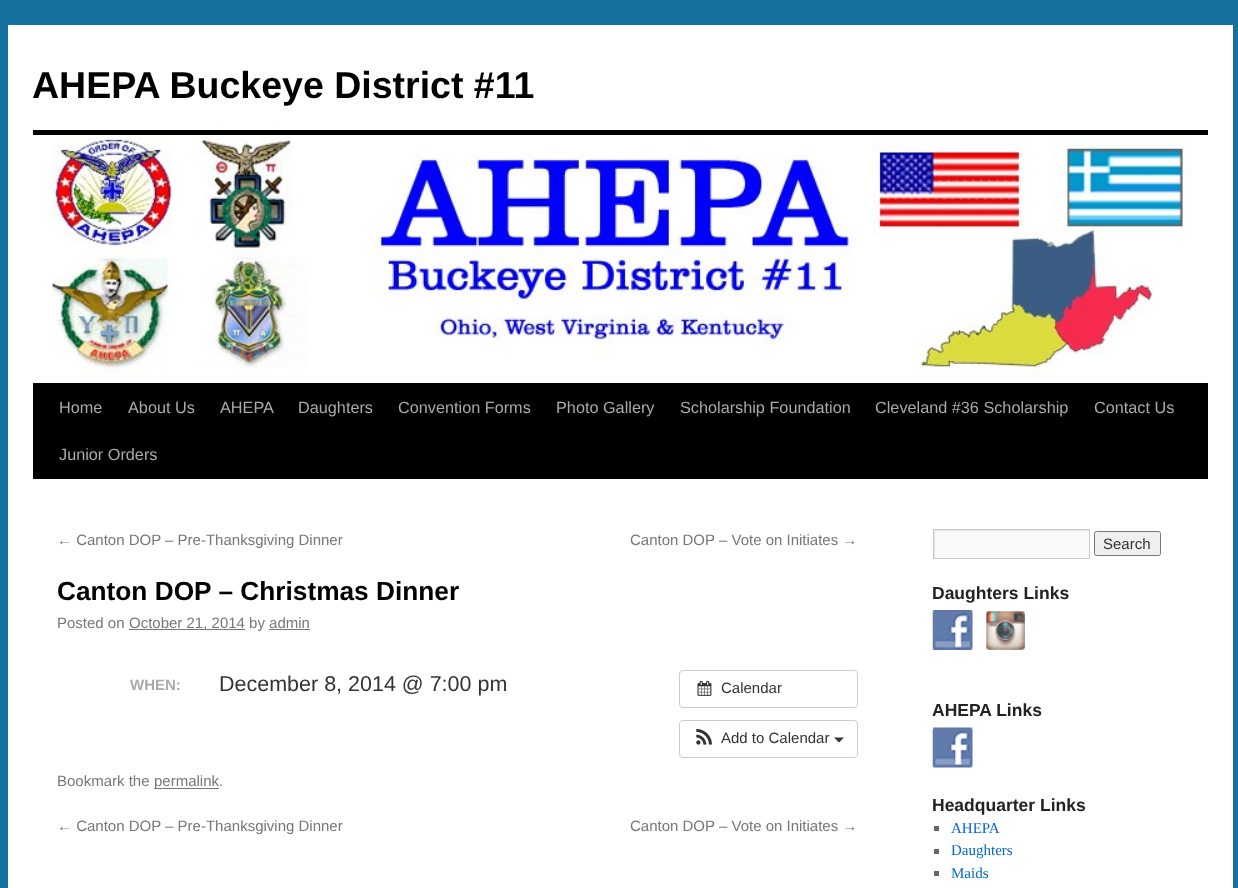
<!DOCTYPE html>
<meta charset="utf-8">
<style>body { margin: 0 } canvas { display: block }</style>
<canvas id="canvas" width="1238" height="888"></canvas>
<script type="module">
  const canvas = document.getElementById("canvas");
  const g = canvas.getContext("2d");
  g.miterLimit = 4;
  g.fontKerning = "normal";
  function drawText(s, x, y, [font, color]) {
    g.font = font;
    g.fillStyle = color;
    g.fillText(s, x, y);
  }
  function fillBox(x, y, w, h, color) {
    g.fillStyle = color;
    g.fillRect(x, y, w, h);
  }
  async function drawPicture(src, x, y, w, h) {
    const img = new Image();
    img.src = src;
    await img.decode();
    g.drawImage(img, x, y, w, h);
  }

  const s1 = ["bold 37.5px Liberation Sans", "#000000"];
  const s2 = ["16.25px Liberation Sans", "#AAAAAA"];
  const s3 = ["15px Liberation Sans", "#777777"];
  const s4 = ["bold 26.25px Liberation Sans", "#000000"];
  const s5 = ["bold 15px Liberation Sans", "#AAAAAA"];
  const s6 = ["21.5px Liberation Sans", "#333333"];
  const s7 = ["15px Liberation Sans", "#333333"];
  const s8 = ["bold 17.5px Liberation Sans", "#222222"];
  const s9 = ["15px Liberation Serif", "#0066CC"];

  fillBox(0, 0, 1238, 888, "#17719E");
  fillBox(8, 25, 1225, 863, "#FFFFFF");
  drawText("AHEPA Buckeye District #11", 32, 98, s1);
  fillBox(33, 130, 1175, 5, "#000000");
  fillBox(33, 383, 1175, 96, "#000000");
  await drawPicture("pic1.png", 52, 135, 1141, 240);
  drawText("Home", 59, 413, s2);
  drawText("About Us", 128, 413, s2);
  drawText("AHEPA", 220, 413, s2);
  drawText("Daughters", 298, 413, s2);
  drawText("Convention Forms", 398, 413, s2);
  drawText("Photo Gallery", 556, 413, s2);
  drawText("Scholarship Foundation", 680, 413, s2);
  drawText("Cleveland #36 Scholarship", 875, 413, s2);
  drawText("Contact Us", 1094, 413, s2);
  drawText("Junior Orders", 59, 460, s2);
  drawText("← Canton DOP – Pre-Thanksgiving Dinner", 57, 545, s3);
  drawText("Canton DOP – Vote on Initiates →", 630, 545, s3);
  drawText("Canton DOP – Christmas Dinner", 57, 600, s4);
  drawText("Posted on", 57, 628, s3);
  fillBox(129, 629, 116, 1, "#777777");
  drawText("October 21, 2014 by admin", 129, 628, s3);
  fillBox(269, 629, 41, 1, "#777777");
  drawText("WHEN:", 130, 690, s5);
  drawText("December 8, 2014 @ 7:00 pm", 219, 691, s6);
  g.beginPath();
  g.roundRect(679.5, 670.5, 178, 37, 3.5);
  g.strokeStyle = "#CCCCCC";
  g.stroke();
  await drawPicture("pic2.png", 697, 680, 15, 16);
  drawText("Calendar", 721, 693, s7);
  g.beginPath();
  g.roundRect(679.5, 720.5, 178, 37, 3.5);
  g.stroke();
  await drawPicture("pic3.png", 696, 729, 16, 16);
  drawText("Add to Calendar", 721, 743, s7);
  g.beginPath();
  g.moveTo(834, 737.5);
  g.lineTo(844, 737.5);
  g.lineTo(839, 742.5);
  g.closePath();
  g.fill();
  drawText("Bookmark the", 57, 786, s3);
  fillBox(154, 788, 65, 1, "#777777");
  drawText("permalink.", 154, 786, s3);
  drawText("← Canton DOP – Pre-Thanksgiving Dinner", 57, 831, s3);
  drawText("Canton DOP – Vote on Initiates →", 630, 831, s3);
  fillBox(935, 531, 154, 27, "#F9F9F9");
  g.save();
  g.beginPath();
  g.rect(934, 530, 155, 28);
  g.clip();
  g.fillStyle = "#E0E0E0";
  g.beginPath();
  g.moveTo(810, 406);
  g.lineTo(1212, 406);
  g.lineTo(1212, 681);
  g.lineTo(810, 681);
  g.closePath();
  g.moveTo(935, 531);
  g.lineTo(1090, 531);
  g.lineTo(1090, 559);
  g.lineTo(935, 559);
  g.closePath();
  g.fill("evenodd");
  g.restore();
  g.strokeRect(933.5, 529.5, 156, 29);
  g.fillStyle = "#EFEFEF";
  g.beginPath();
  g.roundRect(1094.5, 531.5, 66, 24, 2);
  g.fill();
  g.strokeStyle = "#767676";
  g.stroke();
  drawText("Search", 1103, 549, s7);
  drawText("Daughters Links", 932, 599, s8);
  await drawPicture("pic4.png", 932, 610, 41, 40);
  await drawPicture("pic5.png", 986, 611, 39, 39);
  drawText("AHEPA Links", 932, 716, s8);
  await drawPicture("pic6.png", 932, 727, 41, 41);
  drawText("Headquarter Links", 932, 811, s8);
  fillBox(934, 826, 5, 5, "#666666");
  drawText("AHEPA", 951, 833, s9);
  fillBox(934, 849, 5, 5, "#666666");
  drawText("Daughters", 951, 855, s9);
  fillBox(934, 871, 5, 5, "#666666");
  drawText("Maids", 951, 878, s9);
</script>
